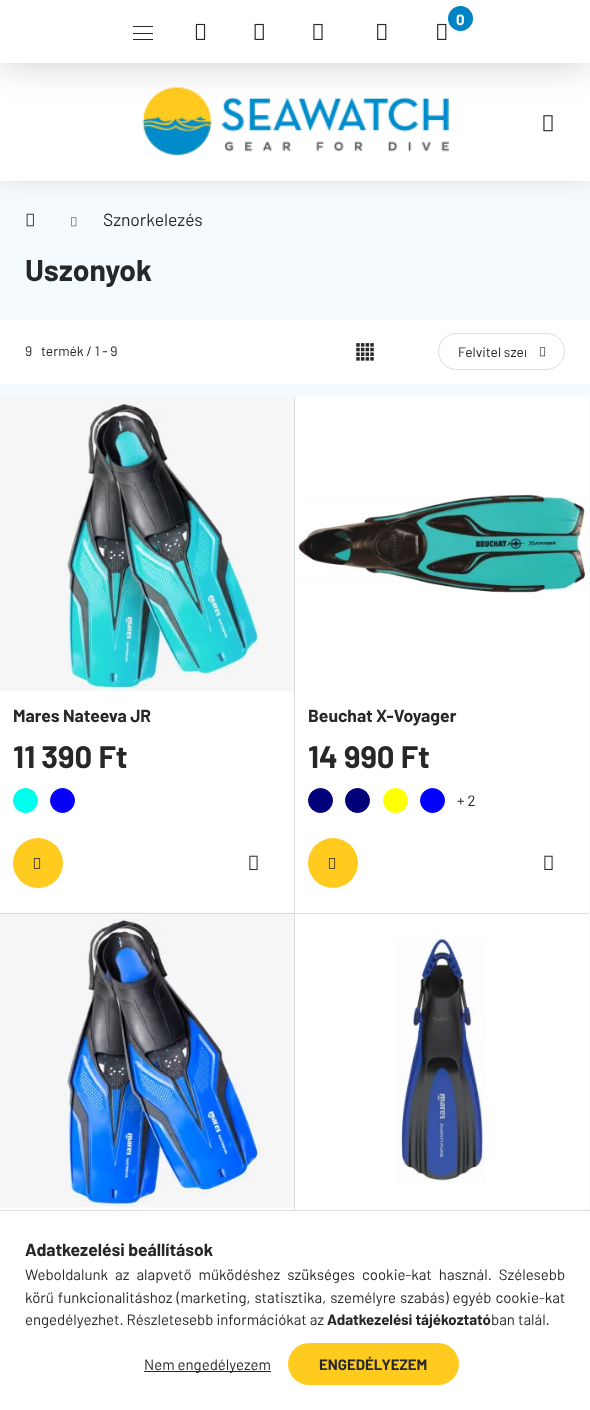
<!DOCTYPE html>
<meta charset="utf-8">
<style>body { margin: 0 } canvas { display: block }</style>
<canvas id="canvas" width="590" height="1410"></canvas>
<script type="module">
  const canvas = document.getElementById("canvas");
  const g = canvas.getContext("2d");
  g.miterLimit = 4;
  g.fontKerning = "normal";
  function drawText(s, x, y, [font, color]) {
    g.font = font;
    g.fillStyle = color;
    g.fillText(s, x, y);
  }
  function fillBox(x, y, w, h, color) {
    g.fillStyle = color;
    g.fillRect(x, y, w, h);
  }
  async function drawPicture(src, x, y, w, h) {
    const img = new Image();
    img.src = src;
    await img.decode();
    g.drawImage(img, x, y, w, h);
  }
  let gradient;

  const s1 = ["bold 15px Barlow", "#FFFFFF"];
  const s2 = ["17.5px Barlow", "#252729"];
  const s3 = ["bold 30px Barlow", "#252729"];
  const s4 = ["13.75px Barlow", "#252729"];
  const s5 = ["bold 17.5px Barlow", "#252729"];
  const s6 = ["bold 31px Barlow", "#252729"];
  const s7 = ["15px Barlow", "#252729"];
  const s8 = ["bold 15px Barlow", "#252729"];

  fillBox(0, 0, 590, 1410, "#F5FAFF");
  await drawPicture("pic7.png", 26, 213, 8, 14);
  await drawPicture("pic8.png", 71, 217, 6, 10);
  g.fillStyle = "rgba(0, 0, 0, 0.1)";
  g.filter = "blur(12.5px)";
  g.beginPath();
  g.rect(0, 63, 590, 118);
  g.fill();
  g.filter = "none";
  fillBox(0, 63, 590, 118, "#FFFFFF");
  await drawPicture("pic5.png", 142, 87, 307, 69);
  await drawPicture("pic6.png", 543, 115, 10, 17);
  g.fillStyle = "rgba(0, 0, 0, 0.2)";
  g.filter = "blur(19px)";
  g.beginPath();
  g.rect(0, 0, 590, 63);
  g.fill();
  g.filter = "none";
  fillBox(0, 0, 590, 63, "#FFFFFF");
  g.fillStyle = "#0083C5";
  g.beginPath();
  g.arc(460.5, 18.5, 12.5, 0, Math.PI * 2);
  g.fill();
  drawText("0", 456, 25, s1);
  await drawPicture("pic1.png", 437, 23, 10, 17);
  fillBox(133, 26, 20, 1, "#252729");
  fillBox(133, 33, 20, 1, "#252729");
  fillBox(133, 39, 20, 1, "#252729");
  await drawPicture("pic2.png", 195, 23, 11, 17);
  await drawPicture("pic3.png", 254, 23, 10, 17);
  await drawPicture("pic4.png", 313, 23, 10, 17);
  await drawPicture("pic1.png", 377, 23, 10, 17);
  drawText("Sznorkelezés", 103, 226, s2);
  drawText("Uszonyok", 25, 281, s3);
  fillBox(0, 320, 590, 64, "#FFFFFF");
  drawText("9", 25, 356, s4);
  drawText("termék / 1 - 9", 41, 356, s4);
  await drawPicture("pic9.png", 356, 343, 18, 18);
  g.beginPath();
  g.roundRect(438.5, 333.5, 126, 36, 18);
  g.strokeStyle = "#DADCDD";
  g.stroke();
  g.save();
  g.beginPath();
  g.rect(458, 343, 68, 20);
  g.clip();
  drawText("Felvitel szer", 458, 357, s4);
  g.restore();
  await drawPicture("pic10.png", 539, 347, 7, 10);
  fillBox(0, 691, 294, 222, "#FFFFFF");
  await drawPicture("pic11.png", 0, 397, 294, 294);
  drawText("Mares Nateeva JR", 13, 722, s5);
  drawText("11 390 Ft", 13, 768, s6);
  g.fillStyle = "#00FFED";
  g.beginPath();
  g.arc(25.5, 800.5, 12, 0, Math.PI * 2);
  g.fill();
  g.strokeStyle = "#00FFED";
  g.stroke();
  g.fillStyle = "#0800F9";
  g.beginPath();
  g.arc(62.5, 800.5, 12, 0, Math.PI * 2);
  g.fill();
  g.strokeStyle = "#0800F9";
  g.stroke();
  gradient = g.createLinearGradient(13, 863, 163, 863);
  gradient.addColorStop(0.33, "#FFCB1F");
  gradient.addColorStop(0.67, "#0083C5");
  g.fillStyle = gradient;
  g.beginPath();
  g.arc(38, 863, 25, 0, Math.PI * 2);
  g.fill();
  await drawPicture("pic12.png", 33, 858, 8, 11);
  await drawPicture("pic13.png", 249, 855, 9, 15);
  fillBox(294, 396, 1, 517, "#DADCDD");
  fillBox(294, 396, 1, 1, "#F5FAFF");
  fillBox(0, 1207, 294, 3, "#FFFFFF");
  await drawPicture("pic15.png", 0, 912, 294, 296);
  fillBox(0, 913, 590, 1, "#DADCDD");
  fillBox(589, 913, 1, 1, "#F5FAFF");
  fillBox(295, 397, 294, 516, "#FFFFFF");
  await drawPicture("pic14.png", 298, 494, 288, 102);
  drawText("Beuchat X-Voyager", 308, 722, s5);
  drawText("14 990 Ft", 308, 768, s6);
  g.fillStyle = "#020079";
  g.beginPath();
  g.arc(320.5, 800.5, 12, 0, Math.PI * 2);
  g.fill();
  g.strokeStyle = "#020079";
  g.stroke();
  g.beginPath();
  g.arc(357.5, 800.5, 12, 0, Math.PI * 2);
  g.fill();
  g.stroke();
  g.fillStyle = "#FFFF00";
  g.beginPath();
  g.arc(395.5, 800.5, 12, 0, Math.PI * 2);
  g.fill();
  g.strokeStyle = "#FFFF00";
  g.stroke();
  g.fillStyle = "#0000FF";
  g.beginPath();
  g.arc(432.5, 800.5, 12, 0, Math.PI * 2);
  g.fill();
  g.strokeStyle = "#0000FF";
  g.stroke();
  drawText("+ 2", 457, 806, s7);
  gradient = g.createLinearGradient(308, 863, 458, 863);
  gradient.addColorStop(0.33, "#FFCB1F");
  gradient.addColorStop(0.67, "#0083C5");
  g.fillStyle = gradient;
  g.beginPath();
  g.arc(333, 863, 25, 0, Math.PI * 2);
  g.fill();
  await drawPicture("pic12.png", 328, 858, 8, 11);
  await drawPicture("pic13.png", 544, 855, 9, 15);
  fillBox(294, 913, 1, 297, "#DADCDD");
  fillBox(295, 914, 294, 296, "#FFFFFF");
  await drawPicture("pic16.png", 396, 938, 89, 245);
  fillBox(0, 1211, 590, 199, "#FFFFFF");
  fillBox(0, 1210, 590, 1, "#DADCDD");
  drawText("Adatkezelési beállítások", 25, 1256, s5);
  g.wordSpacing = "4px";
  drawText("Weboldalunk az alapvető működéshez szükséges cookie-kat használ. Szélesebb", 25, 1280, s7);
  g.wordSpacing = "1px";
  drawText("körű funkcionalitáshoz (marketing, statisztika, személyre szabás) egyéb cookie-kat", 25, 1303, s7);
  g.wordSpacing = "0px";
  drawText("engedélyezhet. Részletesebb információkat az", 25, 1325, s7);
  drawText("Adatkezelési tájékoztató", 327, 1325, s8);
  drawText("ban talál.", 491, 1325, s7);
  fillBox(144, 1371, 127, 1, "#252729");
  drawText("Nem engedélyezem", 144, 1370, s7);
  gradient = g.createLinearGradient(288, 1364, 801, 1364);
  gradient.addColorStop(0.33, "#FFCB1F");
  gradient.addColorStop(0.67, "#0083C5");
  g.fillStyle = gradient;
  g.beginPath();
  g.roundRect(288, 1343, 171, 42, 21);
  g.fill();
  drawText("ENGEDÉLYEZEM", 319, 1370, s8);
</script>
